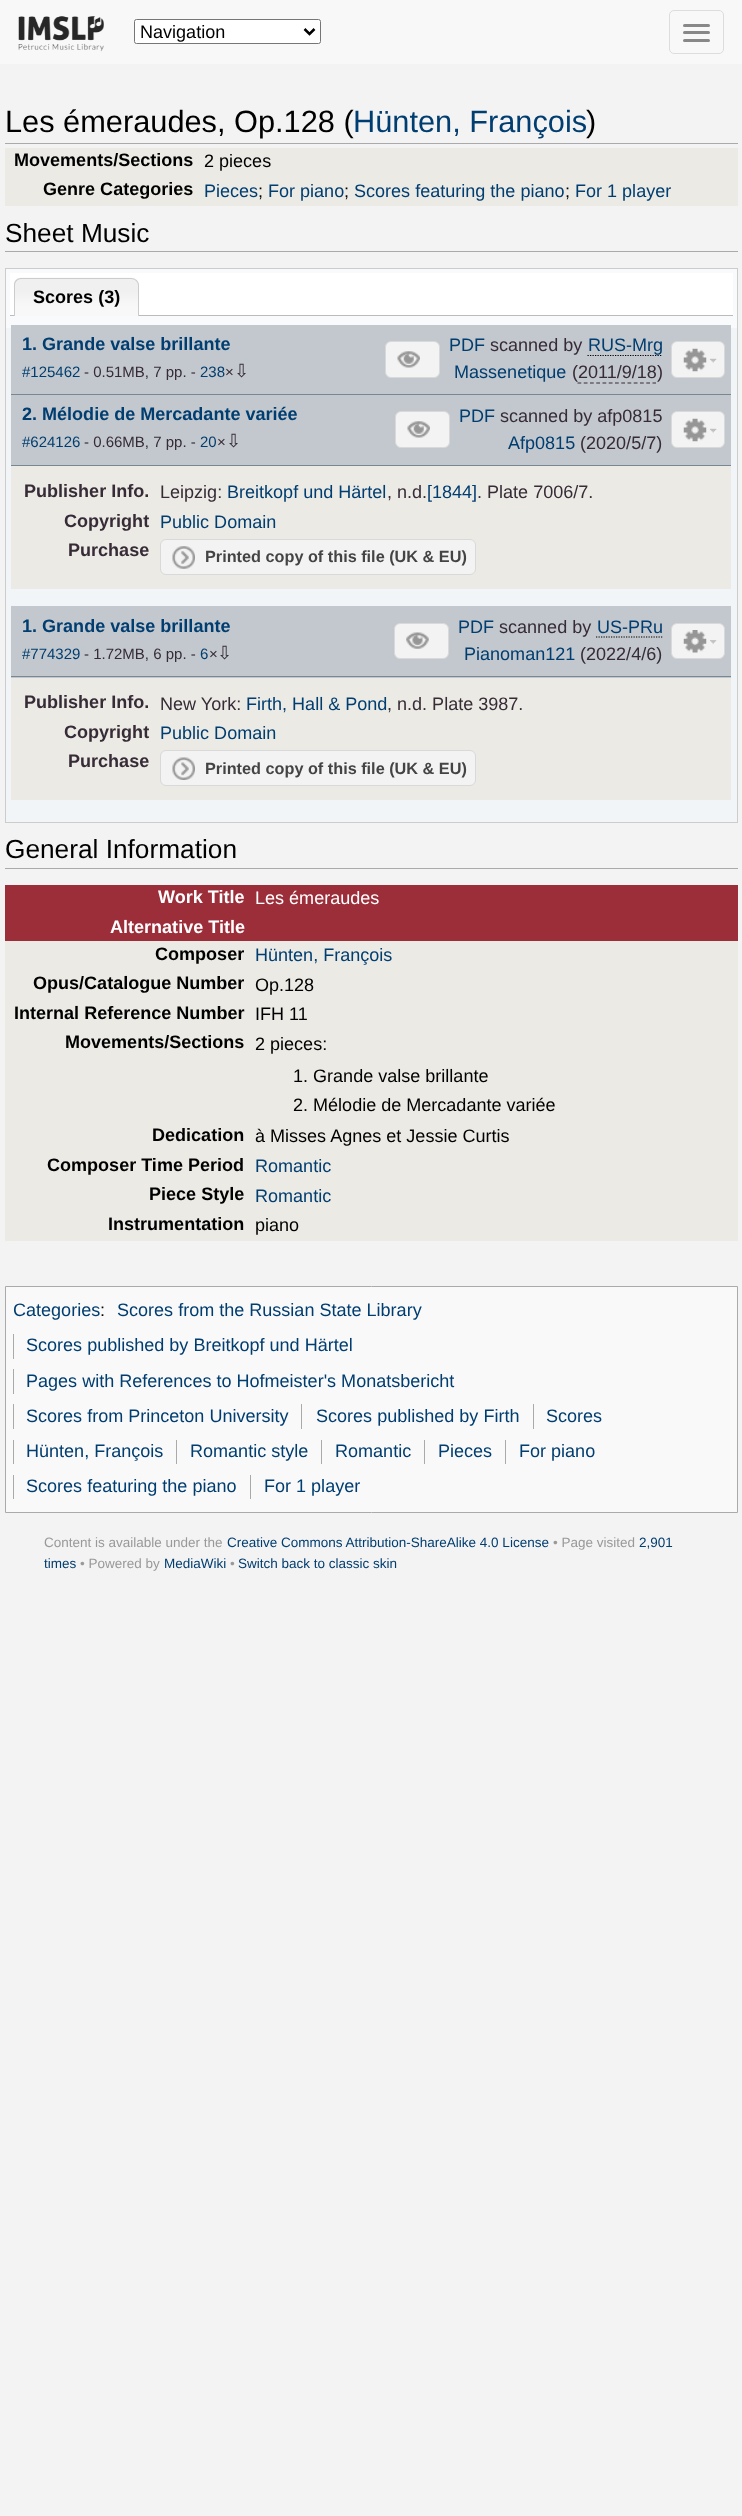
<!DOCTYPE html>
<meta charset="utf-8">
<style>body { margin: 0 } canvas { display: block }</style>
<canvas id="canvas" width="742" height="2516"></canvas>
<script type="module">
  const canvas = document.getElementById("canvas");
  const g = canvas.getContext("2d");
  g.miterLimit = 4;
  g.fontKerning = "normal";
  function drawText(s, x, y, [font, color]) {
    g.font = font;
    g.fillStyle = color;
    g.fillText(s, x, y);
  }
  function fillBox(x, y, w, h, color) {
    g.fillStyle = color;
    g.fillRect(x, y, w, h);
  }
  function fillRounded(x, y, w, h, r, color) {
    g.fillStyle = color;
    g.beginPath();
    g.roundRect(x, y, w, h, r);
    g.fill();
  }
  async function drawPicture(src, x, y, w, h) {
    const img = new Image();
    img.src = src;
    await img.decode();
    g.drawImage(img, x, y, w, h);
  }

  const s1 = ["18.05px Liberation Sans", "#000000"];
  const s2 = ["30.75px Liberation Sans", "#000000"];
  const s3 = ["30.75px Liberation Sans", "#003D70"];
  const s4 = ["bold 18.05px Liberation Sans", "#000000"];
  const s5 = ["18.05px Liberation Sans", "#003D70"];
  const s6 = ["26.25px Liberation Sans", "#000000"];
  const s7 = ["bold 18.05px Liberation Sans", "#003D70"];
  const s8 = ["15px Liberation Sans", "#003D70"];
  const s9 = ["15px Liberation Sans", "#362B36"];
  const s10 = ["18.05px DejaVu Sans", "#362B36"];
  const s11 = ["18.05px Liberation Sans", "#362B36"];
  const s12 = ["bold 18.05px Liberation Sans", "#362B36"];
  const s13 = ["bold 16.25px Liberation Sans", "#444444"];
  const s14 = ["bold 18.05px Liberation Sans", "#FFFFFF"];
  const s15 = ["18.05px Liberation Sans", "#FFFFFF"];
  const s16 = ["13.5px Liberation Sans", "#999999"];
  const s17 = ["13.5px Liberation Sans", "#003D70"];

  fillBox(0, 0, 742, 2516, "#F3F3F3");
  fillBox(0, 0, 742, 64, "#F8F8F8");
  await drawPicture("pic1.png", 18, 16, 86, 36);
  g.fillStyle = "#FFFFFF";
  g.beginPath();
  g.roundRect(134.5, 19.5, 186, 24, 2);
  g.fill();
  g.strokeStyle = "#767676";
  g.stroke();
  g.beginPath();
  g.moveTo(304.5, 29);
  g.lineTo(309.5, 34);
  g.lineTo(314.5, 29);
  g.strokeStyle = "#000000";
  g.lineWidth = 2.5;
  g.stroke();
  drawText("Navigation", 140, 38, s1);
  g.beginPath();
  g.roundRect(669.5, 10.5, 54, 43, 4.5);
  g.strokeStyle = "#DDDDDD";
  g.lineWidth = 1;
  g.stroke();
  fillRounded(683, 24, 27, 3, 1.5, "#888888");
  fillRounded(683, 31, 27, 3, 1.5, "#888888");
  fillRounded(683, 39, 27, 3, 1.5, "#888888");
  fillBox(5, 143, 733, 1, "#AAAAAA");
  drawText("Les émeraudes, Op.128 (", 5, 132, s2);
  drawText("Hünten, François", 353, 132, s3);
  drawText(")", 586, 132, s2);
  fillBox(5, 148, 733, 58, "#EBEAE4");
  drawText("Movements/Sections", 14, 166, s4);
  drawText("2 pieces", 204, 167, s1);
  drawText("Genre Categories", 43, 195, s4);
  drawText("Pieces", 204, 197, s5);
  drawText(";", 258, 197, s1);
  drawText("For piano", 268, 197, s5);
  drawText(";", 344, 197, s1);
  drawText("Scores featuring the piano", 354, 197, s5);
  drawText(";", 565, 197, s1);
  drawText("For 1 player", 575, 197, s5);
  fillBox(5, 251, 733, 1, "#AAAAAA");
  drawText("Sheet Music", 5, 242, s6);
  fillBox(6, 328, 731, 494, "#F2F5F7");
  fillBox(6, 269, 731, 59, "#F9FAFB");
  g.strokeStyle = "#CCCCCC";
  g.strokeRect(5.5, 268.5, 732, 554);
  fillBox(10, 273, 723, 42, "#FFFFFF");
  fillBox(10, 315, 723, 1, "#BBBBBB");
  await drawPicture("pic2.png", 13, 277, 126, 39);
  g.fillStyle = "#CCCCCC";
  g.beginPath();
  g.moveTo(21, 278);
  g.lineTo(131, 278);
  g.bezierCurveTo(135, 278, 139, 281, 139, 285);
  g.lineTo(139, 316);
  g.lineTo(14, 316);
  g.lineTo(14, 285);
  g.bezierCurveTo(14, 281, 17, 278, 21, 278);
  g.closePath();
  g.moveTo(21, 279);
  g.lineTo(131, 279);
  g.bezierCurveTo(135, 279, 138, 282, 138, 285);
  g.lineTo(138, 316);
  g.lineTo(15, 316);
  g.lineTo(15, 285);
  g.bezierCurveTo(15, 282, 18, 279, 21, 279);
  g.closePath();
  g.fill("evenodd");
  drawText("Scores (3)", 33, 303, s4);
  fillBox(11, 325, 720, 69, "#C2C8CD");
  fillBox(11, 394, 720, 1, "#788791");
  drawText("1. Grande valse brillante", 22, 350, s7);
  drawText("#125462", 22, 377, s8);
  drawText("- 0.51MB, 7 pp. -", 84, 377, s9);
  drawText("238", 200, 377, s8);
  drawText("×", 225, 377, s9);
  drawText("⇩", 234, 377, s10);
  g.fillStyle = "#F3F3F3";
  g.beginPath();
  g.roundRect(385.5, 341.5, 54, 36, 5.5);
  g.fill();
  g.strokeStyle = "#D9D9D9";
  g.stroke();
  await drawPicture("pic3.png", 397, 351, 23, 17);
  drawText("PDF", 449, 351, s5);
  drawText("scanned by", 490, 351, s11);
  g.beginPath();
  g.moveTo(587.5, 355.5);
  g.lineTo(662.5, 355.5);
  g.strokeStyle = "#000000";
  g.lineWidth = 1.2;
  g.setLineDash([1.25, 1.25]);
  g.stroke();
  drawText("RUS-Mrg", 588, 351, s5);
  drawText("Massenetique", 454, 378, s5);
  drawText("(2011/9/18)", 572, 378, s11);
  g.beginPath();
  g.moveTo(577.5, 383);
  g.lineTo(656, 383);
  g.strokeStyle = "#362B36";
  g.setLineDash([3.75, 2.5]);
  g.stroke();
  g.fillStyle = "#F3F3F3";
  g.beginPath();
  g.roundRect(671.5, 341.5, 53, 36, 5.5);
  g.fill();
  g.strokeStyle = "#D9D9D9";
  g.lineWidth = 1;
  g.setLineDash([]);
  g.stroke();
  await drawPicture("pic4.png", 683, 348, 24, 24);
  await drawPicture("pic5.png", 710, 358, 7, 5);
  fillBox(11, 395, 720, 70, "#C2C8CD");
  fillBox(11, 465, 720, 1, "#788791");
  drawText("2. Mélodie de Mercadante variée", 22, 420, s7);
  drawText("#624126", 22, 447, s8);
  drawText("- 0.66MB, 7 pp. -", 84, 447, s9);
  drawText("20", 200, 447, s8);
  drawText("×", 217, 447, s9);
  drawText("⇩", 226, 447, s10);
  g.fillStyle = "#F3F3F3";
  g.beginPath();
  g.roundRect(395.5, 411.5, 54, 36, 5.5);
  g.fill();
  g.stroke();
  await drawPicture("pic3.png", 407, 421, 23, 17);
  drawText("PDF", 459, 422, s5);
  drawText("scanned by afp0815", 500, 422, s11);
  drawText("Afp0815", 508, 449, s5);
  drawText("(2020/5/7)", 580, 449, s11);
  g.fillStyle = "#F3F3F3";
  g.beginPath();
  g.roundRect(671.5, 411.5, 53, 36, 5.5);
  g.fill();
  g.stroke();
  await drawPicture("pic4.png", 683, 418, 24, 24);
  await drawPicture("pic5.png", 710, 428, 7, 5);
  fillBox(11, 466, 720, 123, "#EBEAE4");
  drawText("Publisher Info.", 24, 497, s12);
  drawText("Leipzig:", 160, 498, s11);
  drawText("Breitkopf und Härtel", 227, 498, s5);
  drawText(", n.d.", 387, 498, s11);
  drawText("[1844]", 427, 498, s5);
  drawText(". Plate 7006/7.", 477, 498, s11);
  drawText("Copyright", 64, 527, s12);
  drawText("Public Domain", 160, 528, s5);
  drawText("Purchase", 68, 556, s12);
  g.fillStyle = "#F3F3F3";
  g.beginPath();
  g.roundRect(160.5, 539.5, 315, 35, 5.5);
  g.fill();
  g.stroke();
  await drawPicture("pic6.png", 172, 546, 23, 23);
  drawText("Printed copy of this file (UK & EU)", 205, 562, s13);
  fillBox(11, 606, 720, 72, "#C2C8CD");
  fillBox(11, 676, 720, 1, "#788791");
  drawText("1. Grande valse brillante", 22, 632, s7);
  drawText("#774329", 22, 659, s8);
  drawText("- 1.72MB, 6 pp. -", 84, 659, s9);
  drawText("6", 200, 659, s8);
  drawText("×", 209, 659, s9);
  drawText("⇩", 217, 659, s10);
  g.fillStyle = "#F3F3F3";
  g.beginPath();
  g.roundRect(394.5, 623.5, 54, 35, 5.5);
  g.fill();
  g.stroke();
  await drawPicture("pic7.png", 406, 632, 23, 17);
  drawText("PDF", 458, 633, s5);
  drawText("scanned by", 499, 633, s11);
  drawText("US-PRu", 597, 633, s5);
  g.beginPath();
  g.moveTo(596, 637);
  g.lineTo(662.5, 637);
  g.strokeStyle = "#000000";
  g.lineWidth = 1.2;
  g.setLineDash([1.25, 1.25]);
  g.stroke();
  drawText("Pianoman121", 464, 660, s5);
  drawText("(2022/4/6)", 580, 660, s11);
  g.fillStyle = "#F3F3F3";
  g.beginPath();
  g.roundRect(671.5, 623.5, 53, 35, 5.5);
  g.fill();
  g.strokeStyle = "#D9D9D9";
  g.lineWidth = 1;
  g.setLineDash([]);
  g.stroke();
  await drawPicture("pic8.png", 683, 630, 24, 23);
  await drawPicture("pic9.png", 710, 640, 7, 4);
  fillBox(11, 678, 720, 122, "#EBEAE4");
  drawText("Publisher Info.", 24, 708, s12);
  drawText("New York:", 160, 710, s11);
  drawText("Firth, Hall & Pond", 246, 710, s5);
  drawText(", n.d. Plate 3987.", 387, 710, s11);
  drawText("Copyright", 64, 738, s12);
  drawText("Public Domain", 160, 739, s5);
  drawText("Purchase", 68, 767, s12);
  g.fillStyle = "#F3F3F3";
  g.beginPath();
  g.roundRect(160.5, 750.5, 315, 35, 5.5);
  g.fill();
  g.stroke();
  await drawPicture("pic10.png", 172, 757, 23, 23);
  drawText("Printed copy of this file (UK & EU)", 205, 774, s13);
  fillBox(5, 868, 733, 1, "#AAAAAA");
  drawText("General Information", 5, 858, s6);
  fillBox(5, 941, 733, 300, "#EBEAE4");
  fillBox(5, 885, 733, 29, "#9C2E3A");
  drawText("Work Title", 158, 903, s14);
  drawText("Les émeraudes", 255, 904, s15);
  fillBox(5, 914, 733, 27, "#9C2E3A");
  drawText("Alternative Title", 110, 933, s14);
  drawText("Composer", 155, 960, s4);
  drawText("Hünten, François", 255, 961, s5);
  drawText("Opus/Catalogue Number", 33, 989, s4);
  drawText("Op.128", 255, 991, s1);
  drawText("Internal Reference Number", 14, 1019, s4);
  drawText("IFH 11", 255, 1020, s1);
  drawText("Movements/Sections", 65, 1048, s4);
  drawText("2 pieces:", 255, 1050, s1);
  drawText("1. Grande valse brillante", 293, 1082, s1);
  drawText("2. Mélodie de Mercadante variée", 293, 1111, s1);
  drawText("Dedication", 152, 1141, s4);
  drawText("à Misses Agnes et Jessie Curtis", 255, 1142, s1);
  drawText("Composer Time Period", 47, 1171, s4);
  drawText("Romantic", 255, 1172, s5);
  drawText("Piece Style", 149, 1200, s4);
  drawText("Romantic", 255, 1202, s5);
  drawText("Instrumentation", 108, 1230, s4);
  drawText("piano", 255, 1231, s1);
  g.fillStyle = "#F9F9F9";
  g.beginPath();
  g.rect(5.5, 1286.5, 732, 226);
  g.fill();
  g.strokeStyle = "#AAAAAA";
  g.stroke();
  drawText("Categories", 13, 1316, s5);
  drawText("Scores from the Russian State Library", 117, 1316, s5);
  fillBox(13, 1334, 1, 25, "#AAAAAA");
  drawText("Scores published by Breitkopf und Härtel", 26, 1351, s5);
  fillBox(13, 1369, 1, 25, "#AAAAAA");
  drawText("Pages with References to Hofmeister's Monatsbericht", 26, 1387, s5);
  fillBox(13, 1404, 1, 25, "#AAAAAA");
  drawText("Scores from Princeton University", 26, 1422, s5);
  fillBox(301, 1404, 1, 25, "#AAAAAA");
  drawText("Scores published by Firth", 316, 1422, s5);
  fillBox(533, 1404, 1, 25, "#AAAAAA");
  drawText("Scores", 546, 1422, s5);
  fillBox(13, 1440, 1, 24, "#AAAAAA");
  drawText("Hünten, François", 26, 1457, s5);
  fillBox(176, 1440, 1, 24, "#AAAAAA");
  drawText("Romantic style", 190, 1457, s5);
  fillBox(321, 1440, 1, 24, "#AAAAAA");
  drawText("Romantic", 335, 1457, s5);
  fillBox(424, 1440, 1, 24, "#AAAAAA");
  drawText("Pieces", 438, 1457, s5);
  fillBox(505, 1440, 1, 24, "#AAAAAA");
  drawText("For piano", 519, 1457, s5);
  fillBox(13, 1475, 1, 24, "#AAAAAA");
  drawText("Scores featuring the piano", 26, 1492, s5);
  fillBox(250, 1475, 1, 24, "#AAAAAA");
  drawText("For 1 player", 264, 1492, s5);
  drawText(":", 100, 1316, s1);
  drawText("Content is available under the", 44, 1547, s16);
  drawText("Creative Commons Attribution-ShareAlike 4.0 License", 227, 1547, s17);
  drawText("• Page visited", 553, 1547, s16);
  drawText("2,901", 639, 1547, s17);
  drawText("times", 44, 1568, s17);
  drawText("• Powered by", 80, 1568, s16);
  drawText("MediaWiki", 164, 1568, s17);
  drawText("•", 230, 1568, s16);
  drawText("Switch back to classic skin", 238, 1568, s17);
</script>
